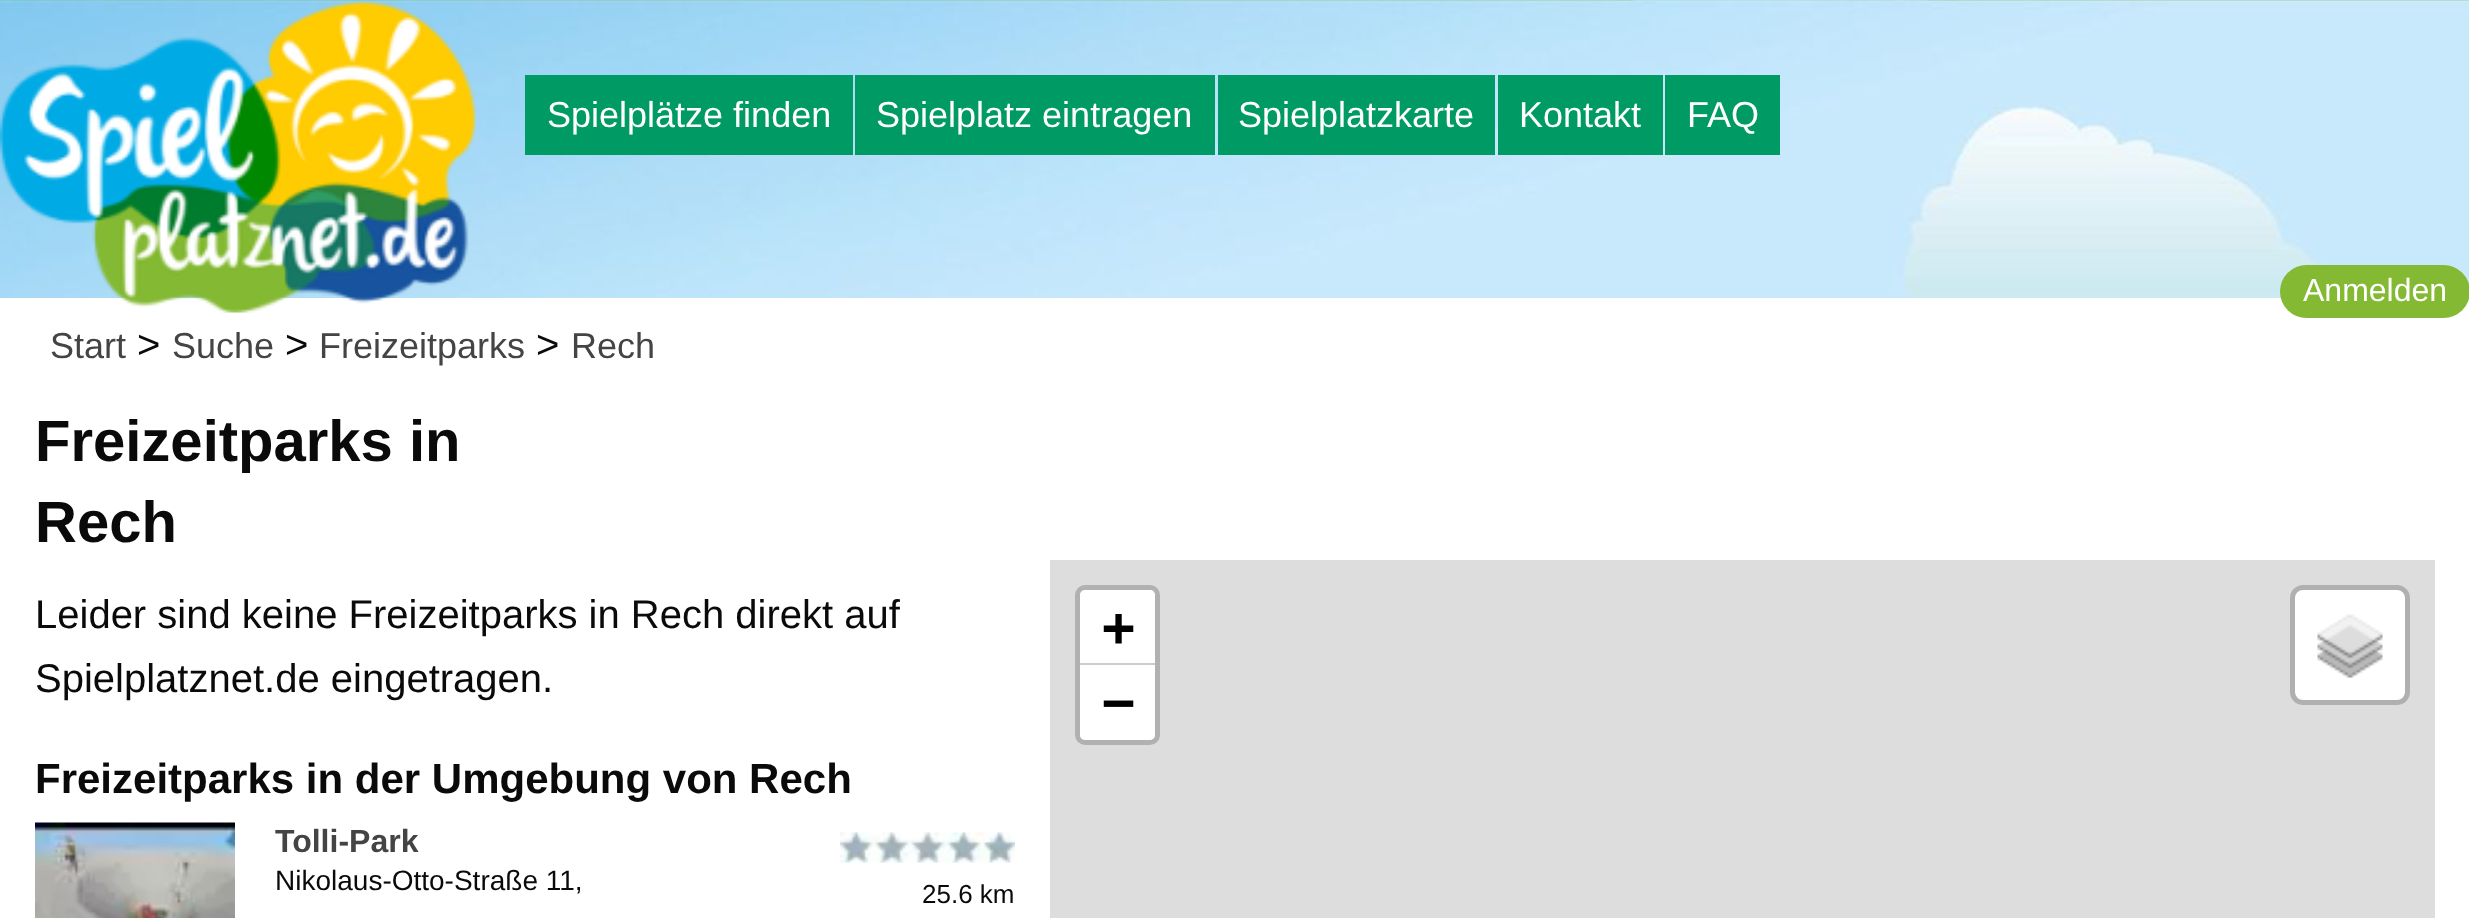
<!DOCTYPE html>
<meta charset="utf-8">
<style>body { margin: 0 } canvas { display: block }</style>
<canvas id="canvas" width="2469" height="918"></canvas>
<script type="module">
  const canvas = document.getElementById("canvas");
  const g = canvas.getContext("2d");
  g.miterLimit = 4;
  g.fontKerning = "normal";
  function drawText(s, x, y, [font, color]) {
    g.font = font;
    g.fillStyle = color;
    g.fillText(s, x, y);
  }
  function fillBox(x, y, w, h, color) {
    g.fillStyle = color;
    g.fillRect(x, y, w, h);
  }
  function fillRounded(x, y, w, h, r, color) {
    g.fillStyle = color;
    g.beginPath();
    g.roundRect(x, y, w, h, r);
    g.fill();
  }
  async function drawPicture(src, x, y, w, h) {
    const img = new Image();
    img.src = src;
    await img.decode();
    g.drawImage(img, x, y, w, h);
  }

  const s1 = ["36px Liberation Sans", "#FFFFFF"];
  const s2 = ["32px Liberation Sans", "#FFFFFF"];
  const s3 = ["36px Liberation Sans", "#444444"];
  const s4 = ["40px Liberation Sans", "#0A0A0A"];
  const s5 = ["bold 58px Liberation Sans", "#0A0A0A"];
  const s6 = ["bold 42px Liberation Sans", "#0A0A0A"];
  const s7 = ["bold 32px Liberation Sans", "#444444"];
  const s8 = ["28px Liberation Sans", "#0A0A0A"];
  const s9 = ["26px Liberation Sans", "#0A0A0A"];
  const s10 = ["bold 55px DejaVu Sans Mono", "#000000"];

  fillBox(0, 0, 2469, 918, "#FFFFFF");
  await drawPicture("pic1.png", 0, 0, 2469, 298);
  await drawPicture("pic2.png", 0, 2, 475, 311);
  fillBox(525, 75, 328, 80, "#009A64");
  drawText("Spielplätze finden", 547, 127, s1);
  fillBox(855, 75, 360, 80, "#009A64");
  drawText("Spielplatz eintragen", 876, 127, s1);
  fillBox(1218, 75, 277, 80, "#009A64");
  drawText("Spielplatzkarte", 1238, 127, s1);
  fillBox(1498, 75, 165, 80, "#009A64");
  drawText("Kontakt", 1519, 127, s1);
  fillBox(1665, 75, 115, 80, "#009A64");
  drawText("FAQ", 1687, 127, s1);
  fillRounded(2280, 265, 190, 53, 26.5, "#84B933");
  drawText("Anmelden", 2303, 301, s2);
  drawText("Start", 50, 358, s3);
  drawText(">", 137, 358, s4);
  drawText("Suche", 172, 358, s3);
  drawText(">", 285, 358, s4);
  drawText("Freizeitparks", 319, 358, s3);
  drawText(">", 536, 358, s4);
  drawText("Rech", 571, 358, s3);
  drawText("Freizeitparks in", 35, 461, s5);
  drawText("Rech", 35, 542, s5);
  drawText("Leider sind keine Freizeitparks in Rech direkt auf", 35, 628, s4);
  drawText("Spielplatznet.de eingetragen.", 35, 692, s4);
  drawText("Freizeitparks in der Umgebung von Rech", 35, 793, s6);
  await drawPicture("pic3.png", 35, 822, 200, 96);
  drawText("Tolli-Park", 275, 852, s7);
  drawText("Nikolaus-Otto-Straße 11,", 275, 890, s8);
  await drawPicture("pic4.png", 840, 832, 175, 31);
  drawText("25.6 km", 922, 903, s9);
  fillBox(1050, 560, 1385, 358, "#DDDDDD");
  g.beginPath();
  g.roundRect(1077.5, 587.5, 80, 155, 7.5);
  g.strokeStyle = "#B1B1B1";
  g.lineWidth = 5;
  g.stroke();
  g.fillStyle = "#FFFFFF";
  g.beginPath();
  g.roundRect(1080, 590, 75, 75, [5, 5, 0, 0]);
  g.fill();
  fillBox(1080, 663, 75, 2, "#CCCCCC");
  drawText("+", 1102, 646, s10);
  g.fillStyle = "#FFFFFF";
  g.beginPath();
  g.roundRect(1080, 665, 75, 75, [0, 0, 5, 5]);
  g.fill();
  drawText("−", 1102, 721, s10);
  fillRounded(2295, 590, 110, 110, 8, "#FFFFFF");
  g.beginPath();
  g.roundRect(2292.5, 587.5, 115, 115, 10.5);
  g.strokeStyle = "rgba(0, 0, 0, 0.2)";
  g.stroke();
  await drawPicture("pic5.png", 2317, 614, 66, 64);
</script>
